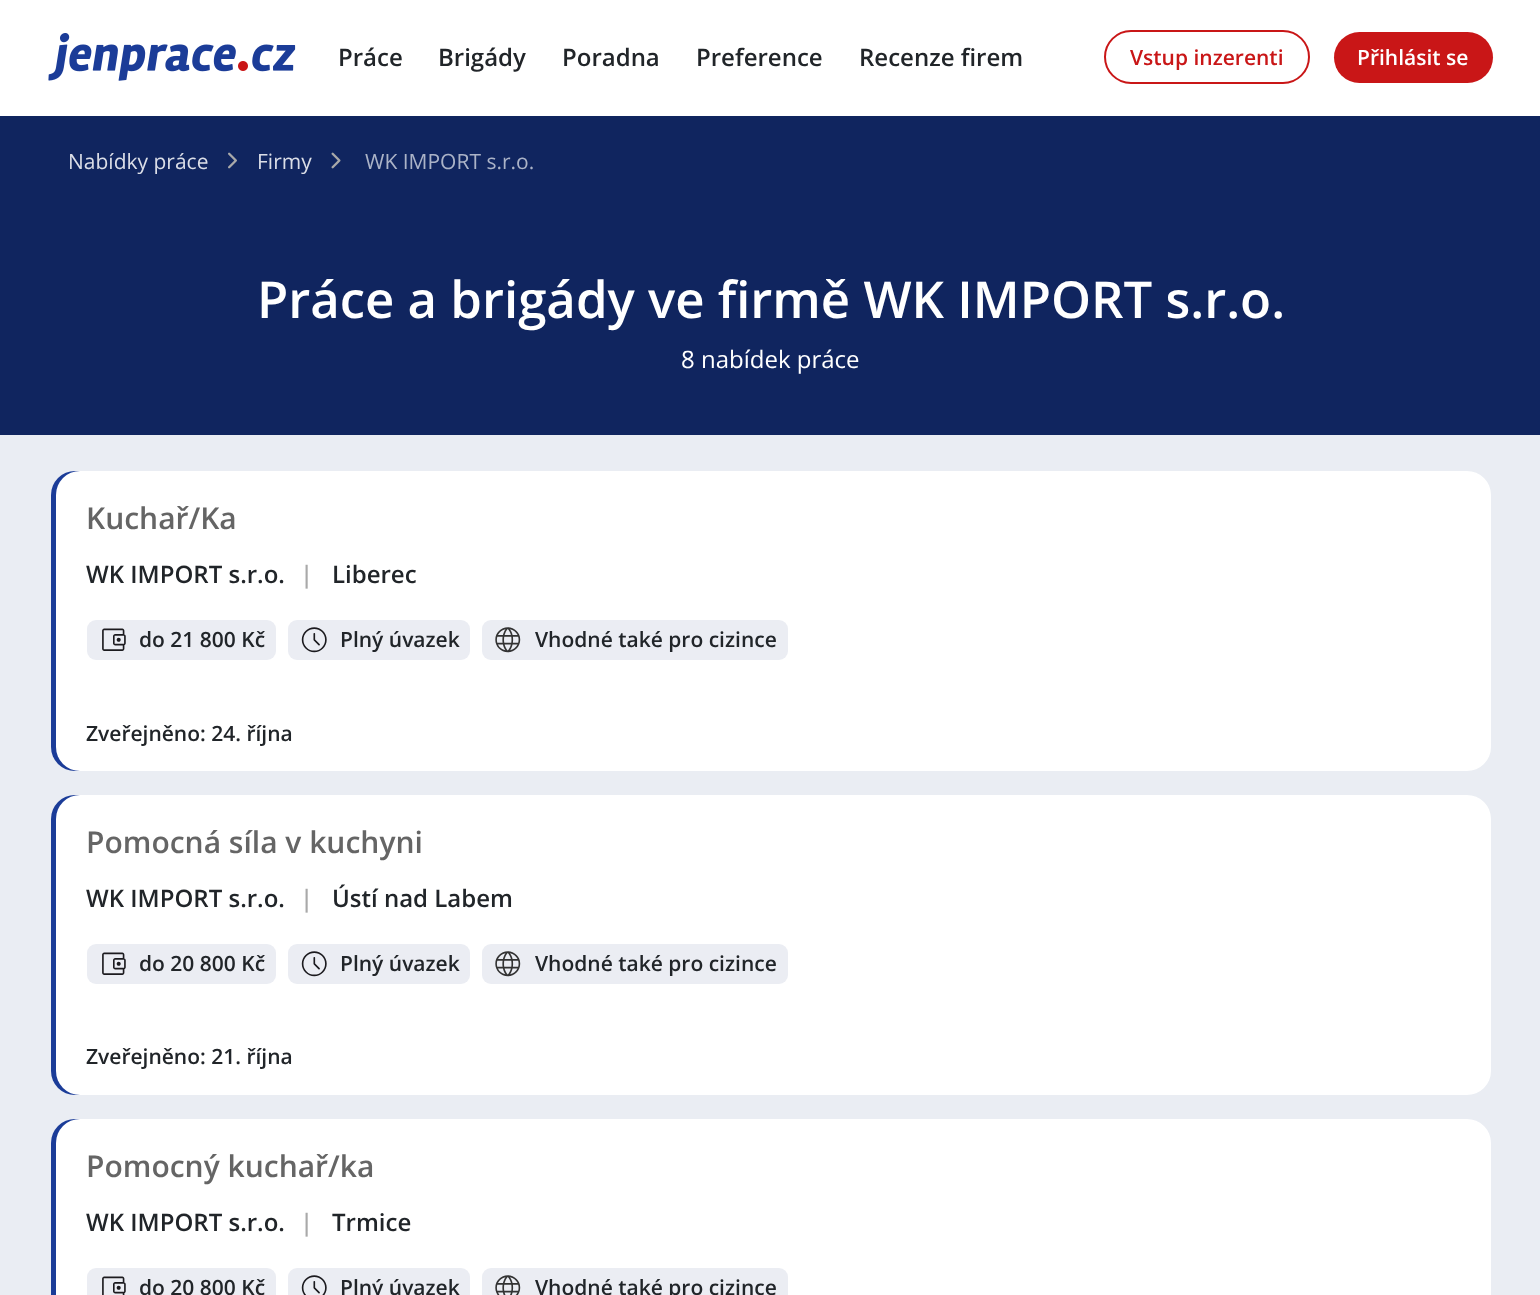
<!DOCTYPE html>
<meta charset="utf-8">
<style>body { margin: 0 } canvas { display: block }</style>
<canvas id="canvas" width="1540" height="1295"></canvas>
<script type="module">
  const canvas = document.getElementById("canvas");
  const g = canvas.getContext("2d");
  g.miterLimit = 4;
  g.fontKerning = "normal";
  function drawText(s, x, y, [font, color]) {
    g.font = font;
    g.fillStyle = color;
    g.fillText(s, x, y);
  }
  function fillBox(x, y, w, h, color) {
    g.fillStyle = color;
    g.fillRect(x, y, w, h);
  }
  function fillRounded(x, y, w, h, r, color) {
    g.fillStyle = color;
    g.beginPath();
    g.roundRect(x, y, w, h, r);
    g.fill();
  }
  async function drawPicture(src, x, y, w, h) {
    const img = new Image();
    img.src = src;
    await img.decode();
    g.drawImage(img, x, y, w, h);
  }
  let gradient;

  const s1 = ["600 24px Open Sans", "#212529"];
  const s2 = ["600 21px Open Sans", "#C91617"];
  const s3 = ["600 21px Open Sans", "#FFFFFF"];
  const s4 = ["21px Open Sans", "#DBDEE7"];
  const s5 = ["21px Open Sans", "#ABB3C7"];
  const s6 = ["600 50.9px Open Sans", "#FFFFFF"];
  const s7 = ["24px Open Sans", "#FFFFFF"];
  const s8 = ["600 30px Open Sans", "#656565"];
  const s9 = ["600 24px Open Sans", "#A9A9A9"];
  const s10 = ["600 21px Open Sans", "#212529"];

  fillBox(0, 0, 1540, 1295, "#FFFFFF");
  await drawPicture("pic1.png", 48, 33, 248, 48);
  drawText("Práce", 338, 66, s1);
  drawText("Brigády", 438, 66, s1);
  drawText("Poradna", 562, 66, s1);
  drawText("Preference", 696, 66, s1);
  drawText("Recenze firem", 859, 66, s1);
  g.beginPath();
  g.roundRect(1105, 31, 204, 52, 26);
  g.strokeStyle = "#C91617";
  g.lineWidth = 2;
  g.stroke();
  drawText("Vstup inzerenti", 1130, 65, s2);
  fillRounded(1334, 32, 159, 51, 25.5, "#C91617");
  drawText("Přihlásit se", 1357, 65, s3);
  fillBox(0, 435, 1540, 860, "#EAEDF3");
  fillBox(0, 116, 1540, 319, "#10255F");
  drawText("Nabídky práce", 68, 169, s4);
  await drawPicture("pic2.png", 228, 152, 9, 17);
  drawText("Firmy", 257, 169, s4);
  await drawPicture("pic3.png", 331, 152, 10, 17);
  drawText("WK IMPORT s.r.o.", 365, 169, s5);
  drawText("Práce a brigády ve firmě WK IMPORT s.r.o.", 257, 318, s6);
  drawText("8 nabídek práce", 681, 368, s7);
  gradient = g.createLinearGradient(51, 621, 1491, 621);
  gradient.addColorStop(0.1, "#1B3C98");
  gradient.addColorStop(1, "#E9EEF2");
  g.fillStyle = gradient;
  g.beginPath();
  g.roundRect(51, 471, 1440, 300, 24);
  g.fill();
  g.save();
  g.beginPath();
  g.roundRect(51, 471, 1440, 300, 24);
  g.clip();
  fillRounded(56, 471, 1440, 300, 24, "#FFFFFF");
  g.restore();
  drawText("Kuchař/Ka", 86, 529, s8);
  drawText("WK IMPORT s.r.o.", 86, 583, s1);
  drawText("|", 300, 583, s9);
  drawText("Liberec", 332, 583, s1);
  fillRounded(87, 620, 189, 40, 9, "#EBEDF3");
  await drawPicture("pic4.png", 102, 628, 24, 23);
  drawText("do 21 800 Kč", 139, 647, s10);
  fillRounded(288, 620, 182, 40, 9, "#EBEDF3");
  await drawPicture("pic5.png", 301, 627, 26, 26);
  drawText("Plný úvazek", 340, 647, s10);
  fillRounded(482, 620, 306, 40, 9, "#EBEDF3");
  await drawPicture("pic6.png", 495, 627, 26, 26);
  drawText("Vhodné také pro cizince", 535, 647, s10);
  drawText("Zveřejněno: 24. října", 86, 741, s10);
  gradient = g.createLinearGradient(51, 945, 1491, 945);
  gradient.addColorStop(0.1, "#1B3C98");
  gradient.addColorStop(1, "#E9EEF2");
  g.fillStyle = gradient;
  g.beginPath();
  g.roundRect(51, 795, 1440, 300, 24);
  g.fill();
  g.save();
  g.beginPath();
  g.roundRect(51, 795, 1440, 300, 24);
  g.clip();
  fillRounded(56, 795, 1440, 300, 24, "#FFFFFF");
  g.restore();
  drawText("Pomocná síla v kuchyni", 86, 853, s8);
  drawText("WK IMPORT s.r.o.", 86, 907, s1);
  drawText("|", 300, 907, s9);
  drawText("Ústí nad Labem", 332, 907, s1);
  fillRounded(87, 944, 189, 40, 9, "#EBEDF3");
  await drawPicture("pic4.png", 102, 952, 24, 23);
  drawText("do 20 800 Kč", 139, 971, s10);
  fillRounded(288, 944, 182, 40, 9, "#EBEDF3");
  await drawPicture("pic5.png", 301, 951, 26, 26);
  drawText("Plný úvazek", 340, 971, s10);
  fillRounded(482, 944, 306, 40, 9, "#EBEDF3");
  await drawPicture("pic6.png", 495, 951, 26, 26);
  drawText("Vhodné také pro cizince", 535, 971, s10);
  drawText("Zveřejněno: 21. října", 86, 1064, s10);
  gradient = g.createLinearGradient(51, 1269, 1491, 1269);
  gradient.addColorStop(0.1, "#1B3C98");
  gradient.addColorStop(1, "#E9ECF4");
  g.fillStyle = gradient;
  g.beginPath();
  g.roundRect(51, 1119, 1440, 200, 24);
  g.fill();
  g.save();
  g.beginPath();
  g.roundRect(51, 1119, 1440, 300, 24);
  g.clip();
  fillRounded(56, 1119, 1440, 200, 24, "#FFFFFF");
  g.restore();
  drawText("Pomocný kuchař/ka", 86, 1177, s8);
  drawText("WK IMPORT s.r.o.", 86, 1231, s1);
  drawText("|", 300, 1231, s9);
  drawText("Trmice", 332, 1231, s1);
  fillRounded(87, 1268, 189, 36, 9, "#EBEDF3");
  await drawPicture("pic7.png", 102, 1276, 24, 19);
  drawText("do 20 800 Kč", 139, 1295, s10);
  fillRounded(288, 1268, 182, 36, 9, "#EBEDF3");
  await drawPicture("pic8.png", 301, 1275, 26, 20);
  drawText("Plný úvazek", 340, 1295, s10);
  fillRounded(482, 1268, 306, 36, 9, "#EBEDF3");
  await drawPicture("pic9.png", 495, 1275, 26, 20);
  drawText("Vhodné také pro cizince", 535, 1295, s10);
</script>
